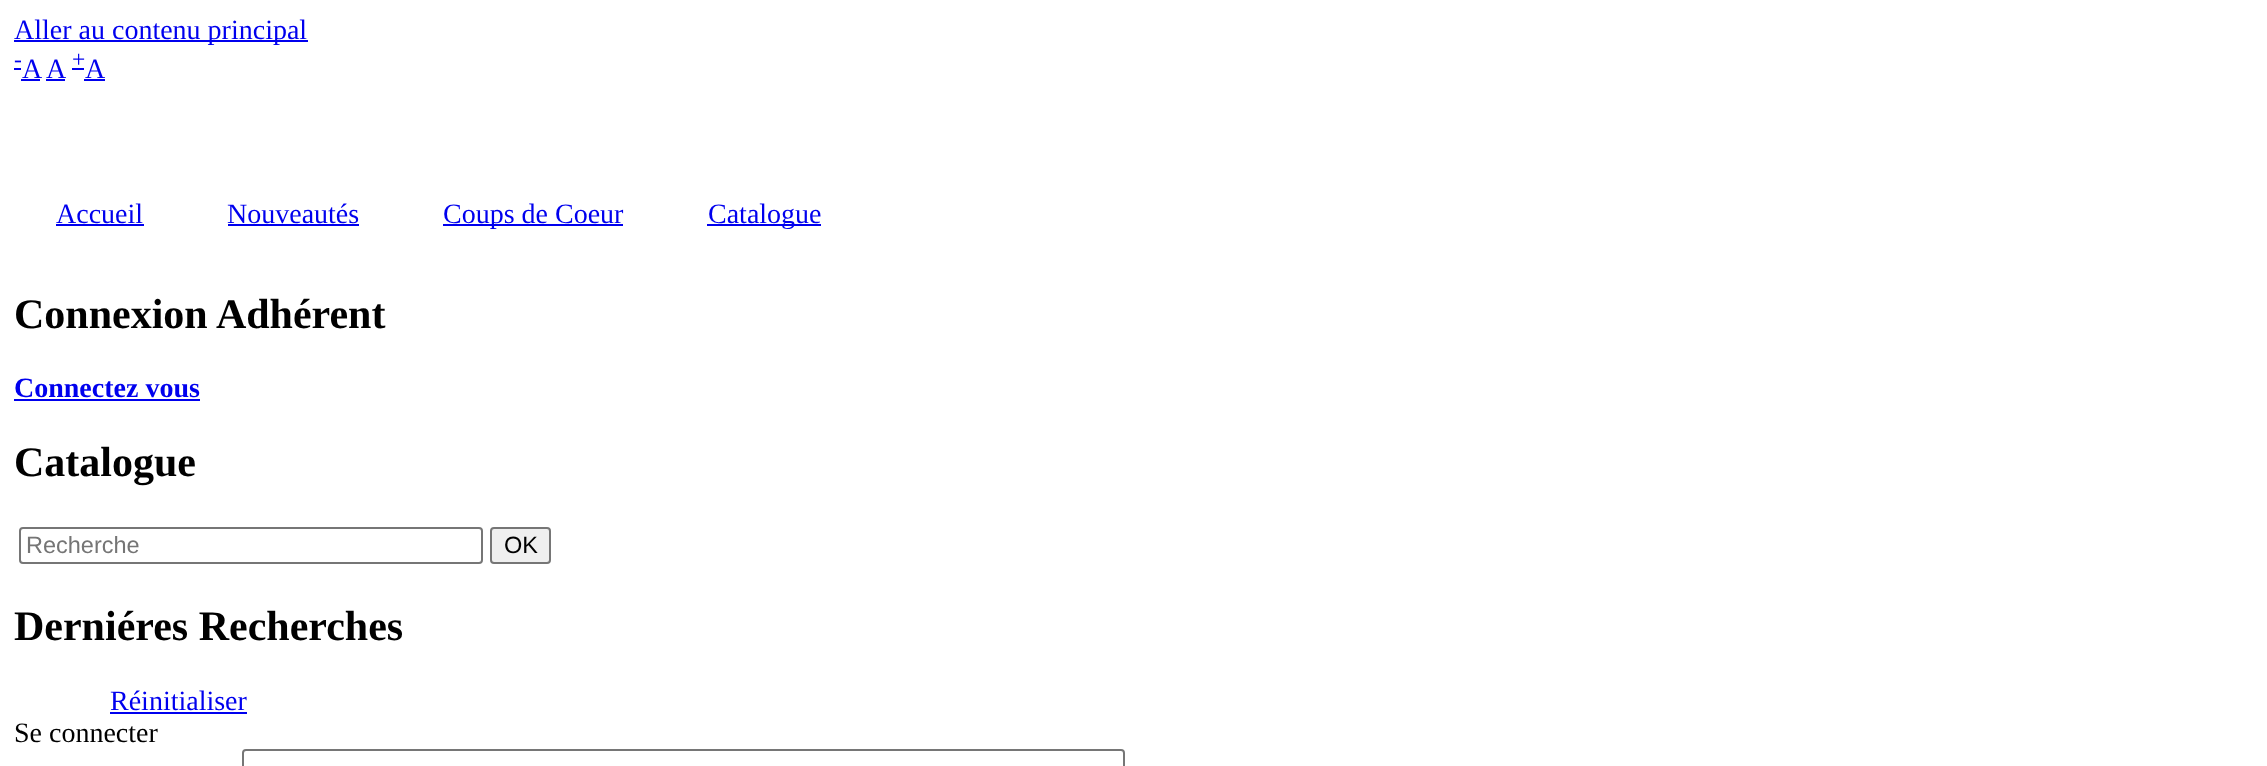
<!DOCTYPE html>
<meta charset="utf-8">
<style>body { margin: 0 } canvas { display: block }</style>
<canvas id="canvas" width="2267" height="766"></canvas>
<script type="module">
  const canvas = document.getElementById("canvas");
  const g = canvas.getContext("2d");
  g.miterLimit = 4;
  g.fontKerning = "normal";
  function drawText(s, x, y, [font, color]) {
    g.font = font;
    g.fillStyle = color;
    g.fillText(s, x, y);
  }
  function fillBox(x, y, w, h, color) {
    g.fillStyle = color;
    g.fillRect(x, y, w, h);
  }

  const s1 = ["28px Liberation Serif", "#0000EE"];
  const s2 = ["23.5px Liberation Serif", "#0000EE"];
  const s3 = ["bold 42px Liberation Serif", "#000000"];
  const s4 = ["bold 28px Liberation Serif", "#0000EE"];
  const s5 = ["23.5px Liberation Sans", "#757575"];
  const s6 = ["23.5px Liberation Sans", "#000000"];
  const s7 = ["28px Liberation Serif", "#000000"];

  fillBox(0, 0, 2267, 766, "#FFFFFF");
  fillBox(14, 40, 294, 2, "#0000EE");
  drawText("Aller au contenu principal", 14, 39, s1);
  drawText("-", 14, 67, s2);
  drawText("A", 22, 78, s1);
  fillBox(14, 68, 7, 2, "#0000EE");
  fillBox(21, 79, 19, 2, "#0000EE");
  drawText("A", 46, 78, s1);
  fillBox(46, 79, 19, 2, "#0000EE");
  drawText("+", 72, 67, s2);
  drawText("A", 85, 78, s1);
  fillBox(72, 68, 12, 2, "#0000EE");
  fillBox(84, 79, 21, 2, "#0000EE");
  drawText("Accueil", 56, 223, s1);
  fillBox(56, 224, 88, 2, "#0000EE");
  drawText("Nouveautés", 227, 223, s1);
  fillBox(228, 224, 131, 2, "#0000EE");
  fillBox(443, 224, 180, 2, "#0000EE");
  drawText("Coups de Coeur", 443, 223, s1);
  fillBox(707, 224, 114, 2, "#0000EE");
  drawText("Catalogue", 708, 223, s1);
  drawText("Connexion Adhérent", 14, 328, s3);
  drawText("Connectez vous", 14, 397, s4);
  fillBox(14, 399, 186, 2, "#0000EE");
  drawText("Catalogue", 14, 476, s3);
  g.beginPath();
  g.roundRect(20, 528, 462, 35, 3);
  g.strokeStyle = "#767676";
  g.lineWidth = 2;
  g.stroke();
  drawText("Recherche", 26, 553, s5);
  g.fillStyle = "#EFEFEF";
  g.beginPath();
  g.roundRect(491, 528, 59, 35, 3);
  g.fill();
  g.stroke();
  drawText("OK", 504, 553, s6);
  drawText("Derniéres Recherches", 14, 640, s3);
  drawText("Réinitialiser", 110, 710, s1);
  fillBox(110, 712, 137, 2, "#0000EE");
  drawText("Se connecter", 14, 742, s7);
  g.beginPath();
  g.roundRect(243, 750, 881, 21, 3);
  g.stroke();
</script>
